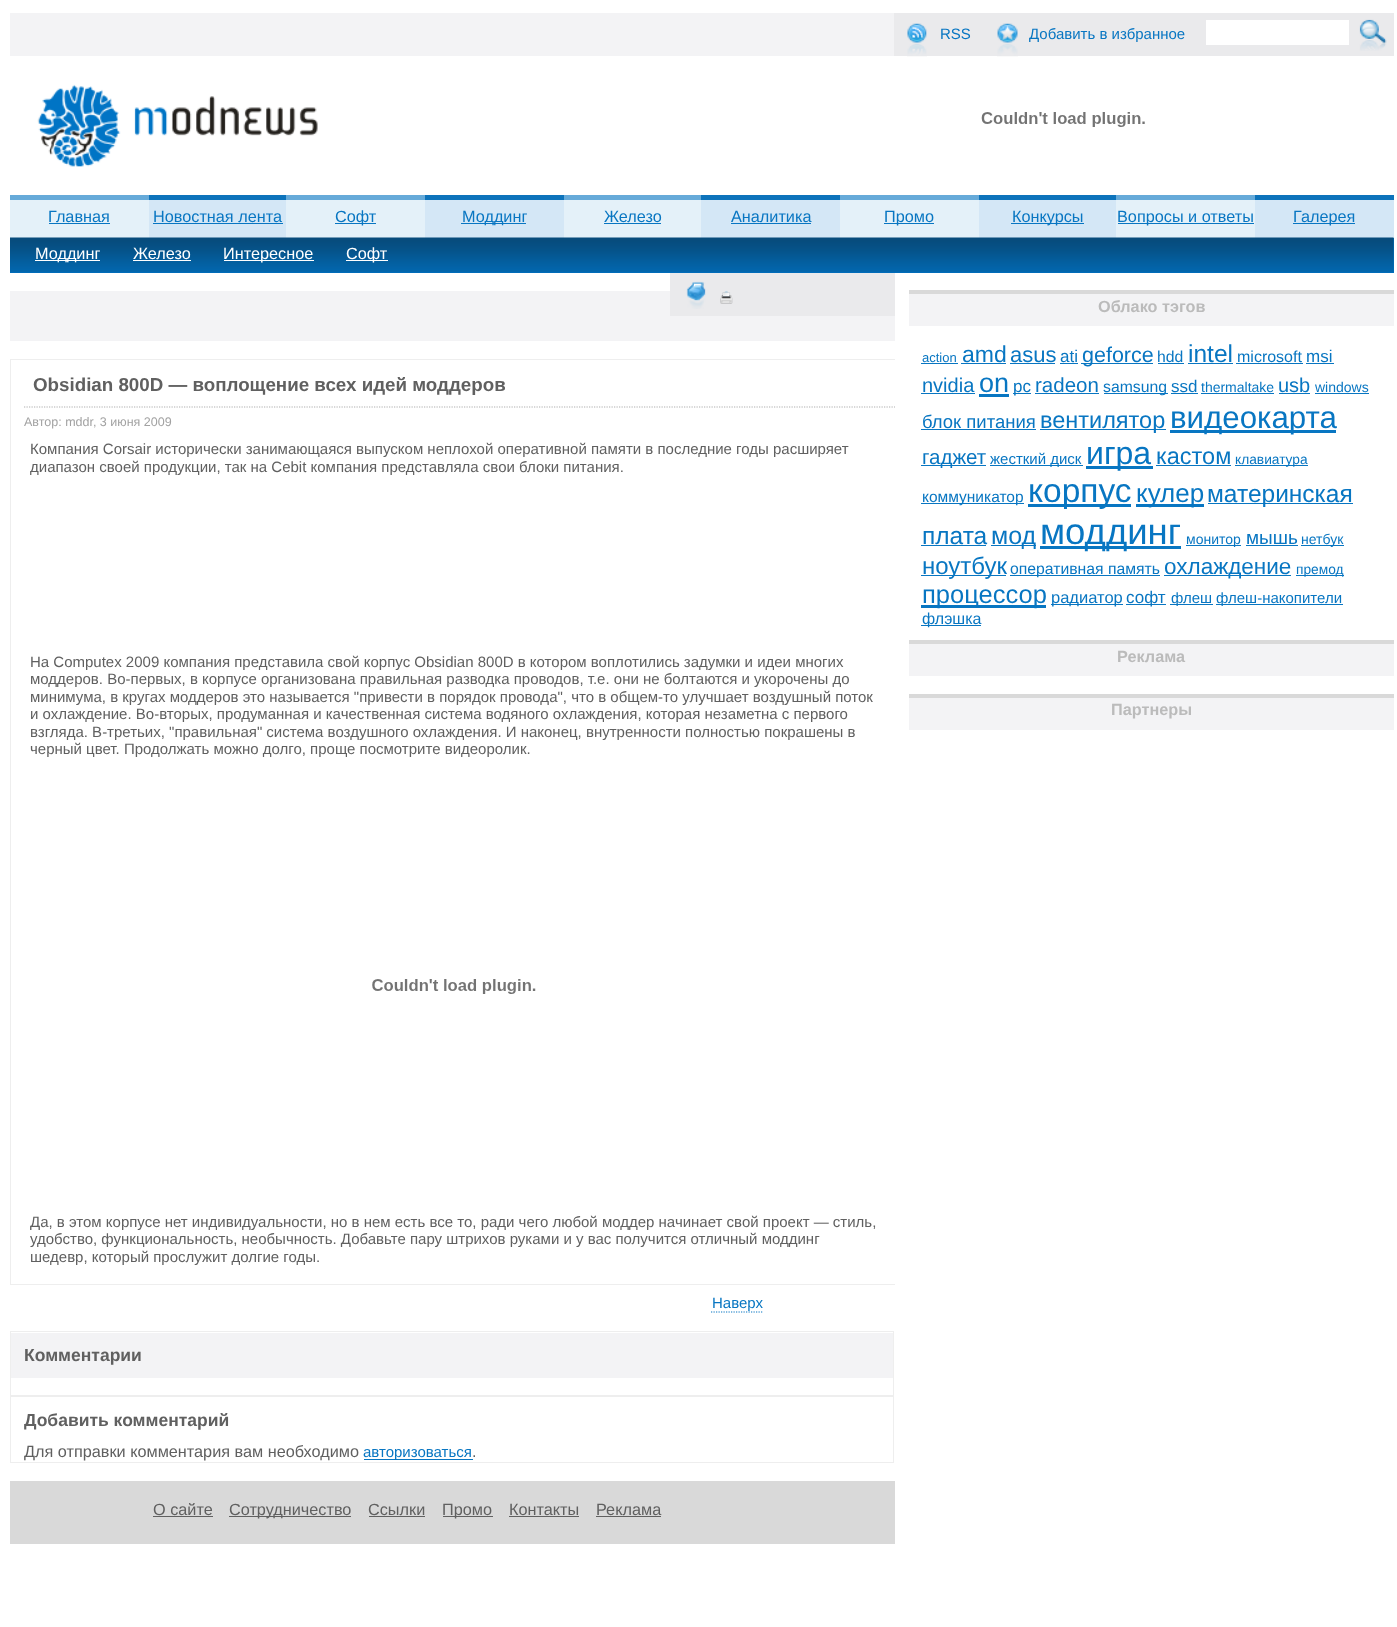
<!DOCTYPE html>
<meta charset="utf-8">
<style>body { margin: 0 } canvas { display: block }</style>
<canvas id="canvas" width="1397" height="1627"></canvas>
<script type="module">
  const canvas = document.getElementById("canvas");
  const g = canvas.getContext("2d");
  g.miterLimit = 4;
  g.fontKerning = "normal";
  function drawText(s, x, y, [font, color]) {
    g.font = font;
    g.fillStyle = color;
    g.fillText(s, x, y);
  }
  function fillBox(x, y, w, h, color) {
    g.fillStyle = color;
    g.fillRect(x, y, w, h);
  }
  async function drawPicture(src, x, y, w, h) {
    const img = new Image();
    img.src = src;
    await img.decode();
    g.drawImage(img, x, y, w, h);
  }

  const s1 = ["15px Liberation Sans", "#0876C2"];
  const s2 = ["16.25px Liberation Sans", "#0876C2"];
  const s3 = ["16.25px Liberation Sans", "#FFFFFF"];
  const s4 = ["bold 18.75px Liberation Sans", "#606060"];
  const s5 = ["12.5px Liberation Sans", "#A2A2A2"];
  const s6 = ["15px Liberation Sans", "#606060"];
  const s7 = ["bold 17.5px Liberation Sans", "#606060"];
  const s8 = ["16.25px Liberation Sans", "#606060"];
  const s9 = ["bold 16.25px Liberation Sans", "#BBBBBB"];
  const s10 = ["13px Liberation Sans", "#0876C2"];
  const s11 = ["23px Liberation Sans", "#0876C2"];
  const s12 = ["22px Liberation Sans", "#0876C2"];
  const s13 = ["17px Liberation Sans", "#0876C2"];
  const s14 = ["21.5px Liberation Sans", "#0876C2"];
  const s15 = ["15.75px Liberation Sans", "#0876C2"];
  const s16 = ["24.5px Liberation Sans", "#0876C2"];
  const s17 = ["16px Liberation Sans", "#0876C2"];
  const s18 = ["20px Liberation Sans", "#0876C2"];
  const s19 = ["27px Liberation Sans", "#0876C2"];
  const s20 = ["20.5px Liberation Sans", "#0876C2"];
  const s21 = ["14px Liberation Sans", "#0876C2"];
  const s22 = ["18.5px Liberation Sans", "#0876C2"];
  const s23 = ["23.5px Liberation Sans", "#0876C2"];
  const s24 = ["31.25px Liberation Sans", "#0876C2"];
  const s25 = ["32px Liberation Sans", "#0876C2"];
  const s26 = ["13.75px Liberation Sans", "#0876C2"];
  const s27 = ["15.5px Liberation Sans", "#0876C2"];
  const s28 = ["33.5px Liberation Sans", "#0876C2"];
  const s29 = ["26px Liberation Sans", "#0876C2"];
  const s30 = ["25px Liberation Sans", "#0876C2"];
  const s31 = ["36.5px Liberation Sans", "#0876C2"];
  const s32 = ["19px Liberation Sans", "#0876C2"];
  const s33 = ["24px Liberation Sans", "#0876C2"];
  const s34 = ["22.5px Liberation Sans", "#0876C2"];
  const s35 = ["25.5px Liberation Sans", "#0876C2"];
  const s36 = ["16.5px Liberation Sans", "#0876C2"];

  fillBox(0, 0, 1397, 1627, "#FFFFFF");
  fillBox(10, 13, 884, 43, "#F3F3F5");
  fillBox(894, 13, 500, 43, "#EAEAEC");
  await drawPicture("pic1.png", 907, 23, 20, 34);
  drawText("RSS", 940, 39, s1);
  await drawPicture("pic2.png", 997, 23, 21, 34);
  drawText("Добавить в избранное", 1029, 39, s1);
  fillBox(1206, 20, 143, 25, "#FFFFFF");
  await drawPicture("pic3.png", 1359, 19, 28, 32);
  await drawPicture("pic4.png", 37, 84, 281, 83);
  await drawPicture("pic5.png", 981, 112, 164, 15);
  fillBox(149, 200, 137, 38, "#D4E7F6");
  fillBox(149, 195, 137, 5, "#0D73BB");
  drawText("Новостная лента", 153, 222, s2);
  fillBox(153, 223, 130, 1, "#0876C2");
  fillBox(10, 238, 1384, 35, "#0073C3");
  fillBox(10, 200, 139, 38, "#E4F1F9");
  fillBox(286, 200, 139, 38, "#E4F1F9");
  fillBox(425, 200, 139, 38, "#D4E7F6");
  fillBox(564, 200, 137, 38, "#E4F1F9");
  fillBox(701, 200, 139, 38, "#D4E7F6");
  fillBox(840, 200, 139, 38, "#E4F1F9");
  fillBox(979, 200, 137, 38, "#D4E7F6");
  fillBox(1116, 200, 139, 38, "#E4F1F9");
  fillBox(1255, 200, 139, 38, "#D4E7F6");
  await drawPicture("pic6.png", 10, 237, 1384, 36);
  fillBox(35, 260, 65, 1, "#FFFFFF");
  drawText("Моддинг", 35, 259, s3);
  drawText("Железо", 133, 259, s3);
  fillBox(133, 260, 58, 1, "#FFFFFF");
  fillBox(224, 260, 90, 1, "#FFFFFF");
  drawText("Интересное", 223, 259, s3);
  fillBox(346, 260, 42, 1, "#FFFFFF");
  drawText("Софт", 346, 259, s3);
  fillBox(10, 195, 139, 5, "#66AAD9");
  drawText("Главная", 48, 222, s2);
  fillBox(49, 223, 61, 1, "#0876C2");
  fillBox(286, 195, 139, 5, "#66AAD9");
  fillBox(335, 223, 41, 1, "#0876C2");
  drawText("Софт", 335, 222, s2);
  fillBox(425, 195, 139, 5, "#0D73BB");
  fillBox(461, 223, 65, 1, "#0876C2");
  drawText("Моддинг", 462, 222, s2);
  fillBox(564, 195, 137, 5, "#66AAD9");
  drawText("Железо", 604, 222, s2);
  fillBox(604, 223, 57, 1, "#0876C2");
  fillBox(701, 195, 139, 5, "#0D73BB");
  drawText("Аналитика", 731, 222, s2);
  fillBox(731, 223, 80, 1, "#0876C2");
  fillBox(840, 195, 139, 5, "#66AAD9");
  fillBox(884, 223, 50, 1, "#0876C2");
  drawText("Промо", 884, 222, s2);
  fillBox(979, 195, 137, 5, "#0D73BB");
  fillBox(1011, 223, 73, 1, "#0876C2");
  drawText("Конкурсы", 1012, 222, s2);
  fillBox(1116, 195, 139, 5, "#66AAD9");
  fillBox(1118, 223, 136, 1, "#0876C2");
  drawText("Вопросы и ответы", 1117, 222, s2);
  fillBox(1255, 195, 139, 5, "#0D73BB");
  fillBox(1293, 223, 62, 1, "#0876C2");
  drawText("Галерея", 1293, 222, s2);
  fillBox(10, 291, 885, 50, "#F3F3F5");
  fillBox(670, 273, 225, 43, "#EAEAEC");
  await drawPicture("pic7.png", 686, 281, 20, 28);
  await drawPicture("pic8.png", 720, 291, 13, 13);
  g.save();
  g.beginPath();
  g.rect(10, 273, 885, 1271);
  g.clip();
  g.strokeStyle = "#EEEEEE";
  g.strokeRect(10.5, 359.5, 887, 925);
  g.restore();
  g.save();
  g.beginPath();
  g.rect(11, 360, 884, 924);
  g.clip();
  g.beginPath();
  g.moveTo(24, 407);
  g.lineTo(904, 407);
  g.strokeStyle = "#B0B0B0";
  g.lineWidth = 1.2;
  g.setLineDash([1.25, 1.25]);
  g.stroke();
  g.restore();
  drawText("Obsidian 800D — воплощение всех идей моддеров", 33, 391, s4);
  drawText("Автор: mddr, 3 июня 2009", 24, 426, s5);
  drawText("Компания Corsair исторически занимающаяся выпуском неплохой оперативной памяти в последние годы расширяет", 30, 454, s6);
  drawText("диапазон своей продукции, так на Cebit компания представляла свои блоки питания.", 30, 472, s6);
  drawText("На Computex 2009 компания представила свой корпус Obsidian 800D в котором воплотились задумки и идеи многих", 30, 667, s6);
  drawText("моддеров. Во-первых, в корпусе организована правильная разводка проводов, т.е. они не болтаются и укорочены до", 30, 684, s6);
  drawText("минимума, в кругах моддеров это называется \"привести в порядок провода\", что в общем-то улучшает воздушный поток", 30, 702, s6);
  drawText("и охлаждение. Во-вторых, продуманная и качественная система водяного охлаждения, которая незаметна с первого", 30, 719, s6);
  drawText("взгляда. В-третьих, \"правильная\" система воздушного охлаждения. И наконец, внутренности полностью покрашены в", 30, 737, s6);
  drawText("черный цвет. Продолжать можно долго, проще посмотрите видеоролик.", 30, 754, s6);
  await drawPicture("pic9.png", 372, 979, 164, 15);
  drawText("Да, в этом корпусе нет индивидуальности, но в нем есть все то, ради чего любой моддер начинает свой проект — стиль,", 30, 1227, s6);
  drawText("удобство, функциональность, необычность. Добавьте пару штрихов руками и у вас получится отличный моддинг", 30, 1244, s6);
  drawText("шедевр, который прослужит долгие годы.", 30, 1262, s6);
  g.beginPath();
  g.moveTo(711, 1312);
  g.lineTo(762.5, 1312);
  g.strokeStyle = "#0876C2";
  g.lineWidth = 1.2;
  g.setLineDash([1.25, 1.25]);
  g.stroke();
  drawText("Наверх", 712, 1308, s1);
  g.strokeStyle = "#EEEEEE";
  g.lineWidth = 1;
  g.setLineDash([]);
  g.strokeRect(10.5, 1331.5, 883, 131);
  fillBox(11, 1333, 882, 45, "#F3F3F5");
  drawText("Комментарии", 24, 1361, s7);
  fillBox(11, 1396, 882, 1, "#EEEEEE");
  fillBox(364, 1459, 109, 1, "#0876C2");
  g.save();
  g.beginPath();
  g.rect(11, 1333, 882, 128);
  g.clip();
  g.strokeRect(10.5, 1395.5, 883, 67);
  g.restore();
  drawText("Добавить комментарий", 24, 1426, s7);
  drawText("Для отправки комментария вам необходимо", 24, 1457, s8);
  drawText("авторизоваться", 363, 1457, s1);
  drawText(".", 472, 1457, s8);
  fillBox(10, 1481, 885, 63, "#D9D9D9");
  drawText("О сайте", 153, 1515, s8);
  fillBox(153, 1516, 60, 1, "#606060");
  fillBox(229, 1516, 122, 1, "#606060");
  drawText("Сотрудничество", 229, 1515, s8);
  drawText("Ссылки", 368, 1515, s8);
  fillBox(369, 1516, 56, 1, "#606060");
  fillBox(443, 1516, 50, 1, "#606060");
  drawText("Промо", 442, 1515, s8);
  drawText("Контакты", 509, 1515, s8);
  fillBox(509, 1516, 70, 1, "#606060");
  drawText("Реклама", 596, 1515, s8);
  fillBox(596, 1516, 65, 1, "#606060");
  fillBox(909, 294, 485, 32, "#F3F3F5");
  fillBox(909, 290, 485, 4, "#D9D9D9");
  drawText("Облако тэгов", 1098, 312, s9);
  drawText("action", 922, 362, s10);
  fillBox(921, 363, 37, 1, "#0876C2");
  drawText("amd", 962, 362, s11);
  fillBox(961, 363, 45, 1, "#0876C2");
  drawText("asus", 1010, 362, s12);
  fillBox(1010, 363, 45, 1, "#0876C2");
  drawText("ati", 1060, 362, s13);
  fillBox(1060, 363, 18, 1, "#0876C2");
  fillBox(1081, 363, 72, 1, "#0876C2");
  drawText("geforce", 1082, 362, s14);
  drawText("hdd", 1157, 362, s15);
  fillBox(1158, 363, 26, 1, "#0876C2");
  drawText("intel", 1188, 362, s16);
  fillBox(1188, 363, 45, 1, "#0876C2");
  drawText("microsoft", 1237, 362, s17);
  fillBox(1236, 363, 67, 1, "#0876C2");
  drawText("msi", 1306, 362, s13);
  fillBox(1306, 363, 28, 1, "#0876C2");
  drawText("nvidia", 922, 392, s18);
  fillBox(921, 393, 54, 1, "#0876C2");
  drawText("on", 979, 392, s19);
  fillBox(979, 394, 30, 3, "#0876C2");
  fillBox(1013, 393, 18, 1, "#0876C2");
  drawText("pc", 1013, 392, s13);
  drawText("radeon", 1035, 392, s20);
  fillBox(1035, 393, 64, 1, "#0876C2");
  fillBox(1104, 393, 64, 1, "#0876C2");
  drawText("samsung", 1103, 392, s15);
  drawText("ssd", 1171, 392, s13);
  fillBox(1171, 393, 27, 1, "#0876C2");
  drawText("thermaltake", 1201, 392, s21);
  fillBox(1201, 393, 73, 1, "#0876C2");
  drawText("usb", 1278, 392, s18);
  fillBox(1279, 393, 31, 1, "#0876C2");
  drawText("windows", 1315, 392, s21);
  fillBox(1315, 393, 54, 1, "#0876C2");
  drawText("блок питания", 922, 428, s22);
  fillBox(921, 429, 115, 1, "#0876C2");
  fillBox(1040, 429, 126, 1, "#0876C2");
  drawText("вентилятор", 1040, 428, s23);
  fillBox(1170, 430, 166, 3, "#0876C2");
  drawText("видеокарта", 1170, 428, s24);
  fillBox(921, 465, 65, 1, "#0876C2");
  drawText("гаджет", 922, 464, s20);
  fillBox(990, 465, 93, 1, "#0876C2");
  drawText("жесткий диск", 990, 464, s1);
  fillBox(1086, 466, 67, 3, "#0876C2");
  drawText("игра", 1086, 464, s25);
  drawText("кастом", 1156, 464, s23);
  fillBox(1156, 465, 75, 1, "#0876C2");
  fillBox(1235, 465, 73, 1, "#0876C2");
  drawText("клавиатура", 1235, 464, s26);
  fillBox(921, 503, 103, 1, "#0876C2");
  drawText("коммуникатор", 922, 502, s27);
  fillBox(1028, 504, 103, 3, "#0876C2");
  drawText("корпус", 1028, 502, s28);
  fillBox(1136, 504, 68, 3, "#0876C2");
  drawText("кулер", 1136, 502, s29);
  fillBox(1208, 503, 145, 1, "#0876C2");
  drawText("материнская", 1207, 502, s16);
  drawText("плата", 922, 544, s16);
  fillBox(921, 545, 65, 1, "#0876C2");
  fillBox(991, 545, 45, 1, "#0876C2");
  drawText("мод", 991, 544, s30);
  fillBox(1040, 546, 141, 3, "#0876C2");
  drawText("моддинг", 1040, 544, s31);
  fillBox(1186, 545, 55, 1, "#0876C2");
  drawText("монитор", 1186, 544, s21);
  drawText("мышь", 1246, 544, s32);
  fillBox(1246, 545, 52, 1, "#0876C2");
  fillBox(1301, 545, 43, 1, "#0876C2");
  drawText("нетбук", 1301, 544, s21);
  fillBox(921, 575, 85, 1, "#0876C2");
  drawText("ноутбук", 922, 574, s33);
  fillBox(1010, 575, 150, 1, "#0876C2");
  drawText("оперативная память", 1010, 574, s15);
  fillBox(1164, 575, 127, 1, "#0876C2");
  drawText("охлаждение", 1164, 574, s34);
  fillBox(1296, 575, 48, 1, "#0876C2");
  drawText("премод", 1296, 574, s26);
  fillBox(921, 605, 125, 3, "#0876C2");
  drawText("процессор", 922, 603, s35);
  fillBox(1051, 604, 72, 1, "#0876C2");
  drawText("радиатор", 1051, 603, s36);
  fillBox(1126, 604, 40, 1, "#0876C2");
  drawText("софт", 1126, 603, s13);
  fillBox(1170, 604, 43, 1, "#0876C2");
  drawText("флеш", 1171, 603, s1);
  fillBox(1216, 604, 127, 1, "#0876C2");
  drawText("флеш-накопители", 1216, 603, s1);
  fillBox(921, 625, 60, 1, "#0876C2");
  drawText("флэшка", 922, 624, s17);
  fillBox(909, 644, 485, 32, "#F3F3F5");
  fillBox(909, 640, 485, 4, "#D9D9D9");
  drawText("Реклама", 1117, 662, s9);
  fillBox(909, 698, 485, 32, "#F3F3F5");
  fillBox(909, 694, 485, 4, "#D9D9D9");
  drawText("Партнеры", 1111, 715, s9);
</script>
